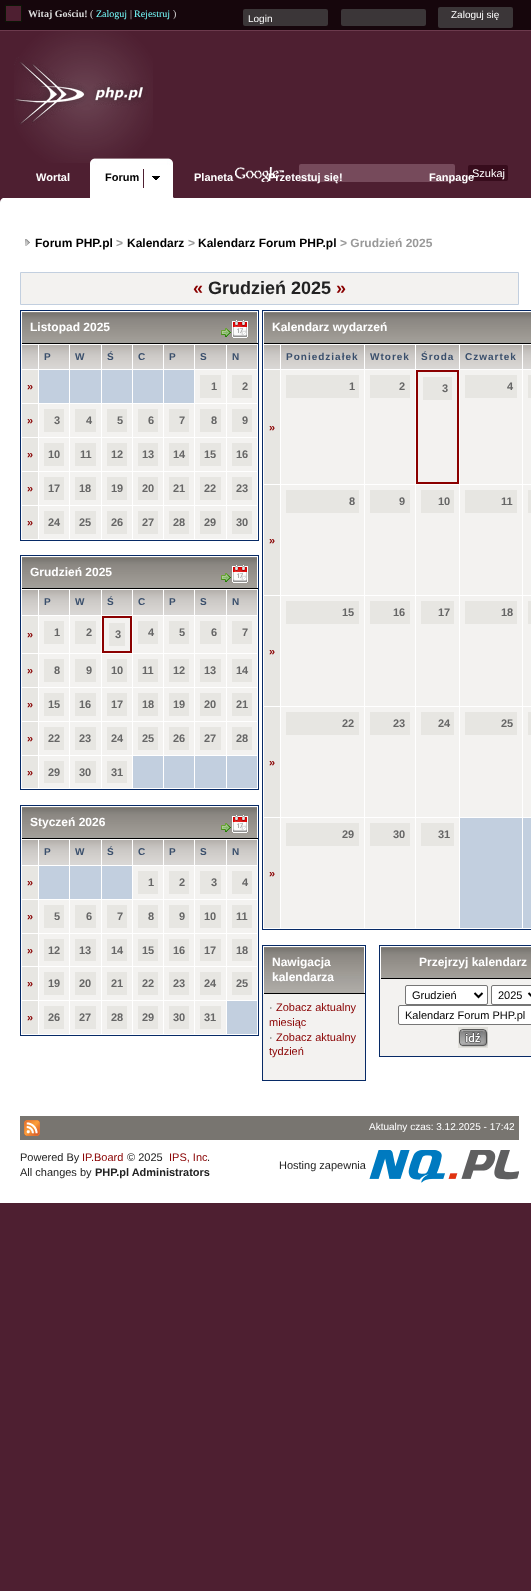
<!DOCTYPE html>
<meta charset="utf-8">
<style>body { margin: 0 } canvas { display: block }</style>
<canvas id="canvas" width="531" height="1591"></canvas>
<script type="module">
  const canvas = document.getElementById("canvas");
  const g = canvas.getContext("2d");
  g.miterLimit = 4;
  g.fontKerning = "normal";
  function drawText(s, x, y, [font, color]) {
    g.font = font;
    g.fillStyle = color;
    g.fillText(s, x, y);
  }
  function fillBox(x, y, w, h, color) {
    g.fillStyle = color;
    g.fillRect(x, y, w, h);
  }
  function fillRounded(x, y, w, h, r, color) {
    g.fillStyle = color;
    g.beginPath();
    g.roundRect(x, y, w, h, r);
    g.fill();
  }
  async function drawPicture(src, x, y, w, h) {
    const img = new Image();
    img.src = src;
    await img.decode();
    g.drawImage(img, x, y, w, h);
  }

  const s1 = ["bold 10px Liberation Serif", "#DDDDDD"];
  const s2 = ["10px Liberation Serif", "#DDDDDD"];
  const s3 = ["10px Liberation Serif", "#76FFFF"];
  const s4 = ["10px Liberation Sans", "#FFFFFF"];
  const s5 = ["bold 11px Liberation Sans", "#FFFFFF"];
  const s6 = ["bold 11px Liberation Sans", "#000000"];
  const s7 = ["11px Liberation Sans", "#FFFFFF"];
  const s8 = ["bold 12px Liberation Sans", "#000000"];
  const s9 = ["bold 12px Liberation Sans", "#999999"];
  const s10 = ["bold 18px Liberation Sans", "#890000"];
  const s11 = ["bold 18px Liberation Sans", "#222222"];
  const s12 = ["bold 12px Liberation Sans", "#FFFFFF"];
  const s13 = ["bold 10px Liberation Sans", "#3A4F6C"];
  const s14 = ["bold 11px Liberation Sans", "#890000"];
  const s15 = ["bold 11px Liberation Sans", "#666666"];
  const s16 = ["11px Liberation Sans", "#222222"];
  const s17 = ["11px Liberation Sans", "#890000"];
  const s18 = ["11px Liberation Sans", "#000000"];
  const s19 = ["bold 11px Liberation Sans", "#222222"];

  fillBox(0, 0, 531, 1591, "#4E1F31");
  fillBox(0, 0, 531, 30, "#16060C");
  fillBox(0, 30, 531, 1, "#6C3A4D");
  fillBox(5, 21, 17, 1, "#0C1606");
  fillBox(6, 6, 15, 15, "#4E1F31");
  fillBox(5, 5, 17, 1, "#0C1606");
  fillBox(21, 5, 1, 16, "#0C1606");
  fillBox(5, 5, 1, 16, "#0C1606");
  drawText("Witaj Gościu!", 28, 17, s1);
  drawText("(", 90, 17, s2);
  drawText("Zaloguj", 96, 17, s3);
  drawText("|", 130, 17, s2);
  drawText("Rejestruj", 134, 17, s3);
  drawText(")", 173, 17, s2);
  fillRounded(243, 9, 85, 17, 2, "#3B3638");
  drawText("Login", 248, 22, s4);
  fillRounded(341, 9, 85, 17, 2, "#3B3638");
  fillRounded(438, 7, 75, 21, 2, "#3B3638");
  drawText("Zaloguj się", 451, 18, s4);
  await drawPicture("pic1.png", 14, 31, 139, 132);
  drawText("Wortal", 36, 181, s5);
  await drawPicture("pic2.png", 90, 158, 53, 40);
  await drawPicture("pic3.png", 143, 158, 31, 40);
  drawText("Forum", 105, 181, s6);
  drawText("Planeta", 194, 181, s5);
  await drawPicture("pic4.png", 235, 167, 49, 15);
  fillRounded(299, 164, 156, 18, 2, "#764A5B");
  drawText("Przetestuj się!", 268, 181, s5);
  fillRounded(468, 165, 40, 16, 2, "#370C1C");
  drawText("Szukaj", 472, 177, s7);
  drawText("Fanpage", 429, 181, s5);
  fillBox(0, 198, 531, 1005, "#FFFFFF");
  await drawPicture("pic5.png", 0, 198, 3, 5);
  await drawPicture("pic6.png", 25, 239, 5, 7);
  drawText("Forum PHP.pl", 35, 247, s8);
  drawText(">", 116, 247, s9);
  drawText("Kalendarz", 127, 247, s8);
  drawText(">", 188, 247, s9);
  drawText("Kalendarz Forum PHP.pl", 198, 247, s8);
  drawText("> Grudzień 2025", 340, 247, s9);
  g.fillStyle = "#F3F2F0";
  g.beginPath();
  g.rect(20.5, 272.5, 498, 32);
  g.fill();
  g.strokeStyle = "#C2CFDF";
  g.stroke();
  drawText("«", 193, 294, s10);
  drawText("Grudzień 2025", 208, 294, s11);
  drawText("»", 336, 294, s10);
  g.strokeStyle = "#072A66";
  g.strokeRect(20.5, 310.5, 238, 230);
  await drawPicture("pic7.png", 22, 312, 235, 31);
  fillBox(21, 343, 237, 1, "#000000");
  fillBox(21, 343, 1, 1, "#FFFFFF");
  drawText("Listopad 2025", 30, 331, s12);
  await drawPicture("pic8.png", 221, 320, 27, 18);
  await drawPicture("pic9.png", 22, 345, 16, 24);
  await drawPicture("pic10.png", 39, 345, 30, 24);
  g.letterSpacing = "1px";
  drawText("P", 44, 360, s13);
  await drawPicture("pic11.png", 70, 345, 31, 24);
  drawText("W", 75, 360, s13);
  await drawPicture("pic10.png", 102, 345, 30, 24);
  drawText("Ś", 107, 360, s13);
  await drawPicture("pic10.png", 133, 345, 30, 24);
  drawText("C", 138, 360, s13);
  await drawPicture("pic10.png", 164, 345, 30, 24);
  drawText("P", 169, 360, s13);
  await drawPicture("pic11.png", 195, 345, 31, 24);
  drawText("S", 200, 360, s13);
  await drawPicture("pic10.png", 227, 345, 30, 24);
  drawText("N", 232, 360, s13);
  fillBox(22, 370, 16, 33, "#E7E6E2");
  g.letterSpacing = "0px";
  drawText("»", 27, 390, s14);
  fillBox(39, 370, 30, 33, "#C2CFDF");
  fillBox(70, 370, 31, 33, "#C2CFDF");
  fillBox(102, 370, 30, 33, "#C2CFDF");
  fillBox(133, 370, 30, 33, "#C2CFDF");
  fillBox(164, 370, 30, 33, "#C2CFDF");
  fillBox(195, 370, 31, 33, "#F3F2F0");
  fillBox(200, 375, 21, 23, "#E7E6E2");
  drawText("1", 211, 390, s15);
  fillBox(227, 370, 30, 33, "#F3F2F0");
  fillBox(232, 375, 20, 23, "#E7E6E2");
  drawText("2", 242, 390, s15);
  fillBox(22, 404, 16, 33, "#E7E6E2");
  drawText("»", 27, 424, s14);
  fillBox(39, 404, 30, 33, "#F3F2F0");
  fillBox(44, 409, 20, 23, "#E7E6E2");
  drawText("3", 54, 424, s15);
  fillBox(70, 404, 31, 33, "#F3F2F0");
  fillBox(75, 409, 21, 23, "#E7E6E2");
  drawText("4", 86, 424, s15);
  fillBox(102, 404, 30, 33, "#F3F2F0");
  fillBox(107, 409, 20, 23, "#E7E6E2");
  drawText("5", 117, 424, s15);
  fillBox(133, 404, 30, 33, "#F3F2F0");
  fillBox(138, 409, 20, 23, "#E7E6E2");
  drawText("6", 148, 424, s15);
  fillBox(164, 404, 30, 33, "#F3F2F0");
  fillBox(169, 409, 20, 23, "#E7E6E2");
  drawText("7", 179, 424, s15);
  fillBox(195, 404, 31, 33, "#F3F2F0");
  fillBox(200, 409, 21, 23, "#E7E6E2");
  drawText("8", 211, 424, s15);
  fillBox(227, 404, 30, 33, "#F3F2F0");
  fillBox(232, 409, 20, 23, "#E7E6E2");
  drawText("9", 242, 424, s15);
  fillBox(22, 438, 16, 33, "#E7E6E2");
  drawText("»", 27, 458, s14);
  fillBox(39, 438, 30, 33, "#F3F2F0");
  fillBox(44, 443, 20, 23, "#E7E6E2");
  drawText("10", 48, 458, s15);
  fillBox(70, 438, 31, 33, "#F3F2F0");
  fillBox(75, 443, 21, 23, "#E7E6E2");
  drawText("11", 80, 458, s15);
  fillBox(102, 438, 30, 33, "#F3F2F0");
  fillBox(107, 443, 20, 23, "#E7E6E2");
  drawText("12", 111, 458, s15);
  fillBox(133, 438, 30, 33, "#F3F2F0");
  fillBox(138, 443, 20, 23, "#E7E6E2");
  drawText("13", 142, 458, s15);
  fillBox(164, 438, 30, 33, "#F3F2F0");
  fillBox(169, 443, 20, 23, "#E7E6E2");
  drawText("14", 173, 458, s15);
  fillBox(195, 438, 31, 33, "#F3F2F0");
  fillBox(200, 443, 21, 23, "#E7E6E2");
  drawText("15", 204, 458, s15);
  fillBox(227, 438, 30, 33, "#F3F2F0");
  fillBox(232, 443, 20, 23, "#E7E6E2");
  drawText("16", 236, 458, s15);
  fillBox(22, 472, 16, 33, "#E7E6E2");
  drawText("»", 27, 492, s14);
  fillBox(39, 472, 30, 33, "#F3F2F0");
  fillBox(44, 477, 20, 23, "#E7E6E2");
  drawText("17", 48, 492, s15);
  fillBox(70, 472, 31, 33, "#F3F2F0");
  fillBox(75, 477, 21, 23, "#E7E6E2");
  drawText("18", 79, 492, s15);
  fillBox(102, 472, 30, 33, "#F3F2F0");
  fillBox(107, 477, 20, 23, "#E7E6E2");
  drawText("19", 111, 492, s15);
  fillBox(133, 472, 30, 33, "#F3F2F0");
  fillBox(138, 477, 20, 23, "#E7E6E2");
  drawText("20", 142, 492, s15);
  fillBox(164, 472, 30, 33, "#F3F2F0");
  fillBox(169, 477, 20, 23, "#E7E6E2");
  drawText("21", 173, 492, s15);
  fillBox(195, 472, 31, 33, "#F3F2F0");
  fillBox(200, 477, 21, 23, "#E7E6E2");
  drawText("22", 204, 492, s15);
  fillBox(227, 472, 30, 33, "#F3F2F0");
  fillBox(232, 477, 20, 23, "#E7E6E2");
  drawText("23", 236, 492, s15);
  fillBox(22, 506, 16, 33, "#E7E6E2");
  drawText("»", 27, 526, s14);
  fillBox(39, 506, 30, 33, "#F3F2F0");
  fillBox(44, 511, 20, 23, "#E7E6E2");
  drawText("24", 48, 526, s15);
  fillBox(70, 506, 31, 33, "#F3F2F0");
  fillBox(75, 511, 21, 23, "#E7E6E2");
  drawText("25", 79, 526, s15);
  fillBox(102, 506, 30, 33, "#F3F2F0");
  fillBox(107, 511, 20, 23, "#E7E6E2");
  drawText("26", 111, 526, s15);
  fillBox(133, 506, 30, 33, "#F3F2F0");
  fillBox(138, 511, 20, 23, "#E7E6E2");
  drawText("27", 142, 526, s15);
  fillBox(164, 506, 30, 33, "#F3F2F0");
  fillBox(169, 511, 20, 23, "#E7E6E2");
  drawText("28", 173, 526, s15);
  fillBox(195, 506, 31, 33, "#F3F2F0");
  fillBox(200, 511, 21, 23, "#E7E6E2");
  drawText("29", 204, 526, s15);
  fillBox(227, 506, 30, 33, "#F3F2F0");
  fillBox(232, 511, 20, 23, "#E7E6E2");
  drawText("30", 236, 526, s15);
  g.strokeRect(20.5, 555.5, 238, 234);
  await drawPicture("pic7.png", 22, 557, 235, 31);
  fillBox(21, 588, 237, 1, "#000000");
  fillBox(21, 588, 1, 1, "#FFFFFF");
  drawText("Grudzień 2025", 30, 576, s12);
  await drawPicture("pic8.png", 221, 565, 27, 18);
  await drawPicture("pic12.png", 22, 590, 16, 25);
  await drawPicture("pic13.png", 39, 590, 30, 25);
  g.letterSpacing = "1px";
  drawText("P", 44, 605, s13);
  await drawPicture("pic14.png", 70, 590, 31, 25);
  drawText("W", 75, 605, s13);
  await drawPicture("pic13.png", 102, 590, 30, 25);
  drawText("Ś", 107, 605, s13);
  await drawPicture("pic13.png", 133, 590, 30, 25);
  drawText("C", 138, 605, s13);
  await drawPicture("pic13.png", 164, 590, 30, 25);
  drawText("P", 169, 605, s13);
  await drawPicture("pic14.png", 195, 590, 31, 25);
  drawText("S", 200, 605, s13);
  await drawPicture("pic13.png", 227, 590, 30, 25);
  drawText("N", 232, 605, s13);
  fillBox(22, 616, 16, 37, "#E7E6E2");
  g.letterSpacing = "0px";
  drawText("»", 27, 638, s14);
  fillBox(39, 616, 30, 37, "#F3F2F0");
  fillBox(44, 621, 20, 23, "#E7E6E2");
  drawText("1", 54, 636, s15);
  fillBox(70, 616, 31, 37, "#F3F2F0");
  fillBox(75, 621, 21, 23, "#E7E6E2");
  drawText("2", 86, 636, s15);
  g.fillStyle = "#F3F2F0";
  g.beginPath();
  g.rect(103, 617, 28, 35);
  g.fill();
  g.strokeStyle = "#8B0000";
  g.lineWidth = 2;
  g.stroke();
  fillBox(109, 623, 16, 23, "#E7E6E2");
  drawText("3", 115, 638, s15);
  fillBox(133, 616, 30, 37, "#F3F2F0");
  fillBox(138, 621, 20, 23, "#E7E6E2");
  drawText("4", 148, 636, s15);
  fillBox(164, 616, 30, 37, "#F3F2F0");
  fillBox(169, 621, 20, 23, "#E7E6E2");
  drawText("5", 179, 636, s15);
  fillBox(195, 616, 31, 37, "#F3F2F0");
  fillBox(200, 621, 21, 23, "#E7E6E2");
  drawText("6", 211, 636, s15);
  fillBox(227, 616, 30, 37, "#F3F2F0");
  fillBox(232, 621, 20, 23, "#E7E6E2");
  drawText("7", 242, 636, s15);
  fillBox(22, 654, 16, 33, "#E7E6E2");
  drawText("»", 27, 674, s14);
  fillBox(39, 654, 30, 33, "#F3F2F0");
  fillBox(44, 659, 20, 23, "#E7E6E2");
  drawText("8", 54, 674, s15);
  fillBox(70, 654, 31, 33, "#F3F2F0");
  fillBox(75, 659, 21, 23, "#E7E6E2");
  drawText("9", 86, 674, s15);
  fillBox(102, 654, 30, 33, "#F3F2F0");
  fillBox(107, 659, 20, 23, "#E7E6E2");
  drawText("10", 111, 674, s15);
  fillBox(133, 654, 30, 33, "#F3F2F0");
  fillBox(138, 659, 20, 23, "#E7E6E2");
  drawText("11", 142, 674, s15);
  fillBox(164, 654, 30, 33, "#F3F2F0");
  fillBox(169, 659, 20, 23, "#E7E6E2");
  drawText("12", 173, 674, s15);
  fillBox(195, 654, 31, 33, "#F3F2F0");
  fillBox(200, 659, 21, 23, "#E7E6E2");
  drawText("13", 204, 674, s15);
  fillBox(227, 654, 30, 33, "#F3F2F0");
  fillBox(232, 659, 20, 23, "#E7E6E2");
  drawText("14", 236, 674, s15);
  fillBox(22, 688, 16, 33, "#E7E6E2");
  drawText("»", 27, 708, s14);
  fillBox(39, 688, 30, 33, "#F3F2F0");
  fillBox(44, 693, 20, 23, "#E7E6E2");
  drawText("15", 48, 708, s15);
  fillBox(70, 688, 31, 33, "#F3F2F0");
  fillBox(75, 693, 21, 23, "#E7E6E2");
  drawText("16", 79, 708, s15);
  fillBox(102, 688, 30, 33, "#F3F2F0");
  fillBox(107, 693, 20, 23, "#E7E6E2");
  drawText("17", 111, 708, s15);
  fillBox(133, 688, 30, 33, "#F3F2F0");
  fillBox(138, 693, 20, 23, "#E7E6E2");
  drawText("18", 142, 708, s15);
  fillBox(164, 688, 30, 33, "#F3F2F0");
  fillBox(169, 693, 20, 23, "#E7E6E2");
  drawText("19", 173, 708, s15);
  fillBox(195, 688, 31, 33, "#F3F2F0");
  fillBox(200, 693, 21, 23, "#E7E6E2");
  drawText("20", 204, 708, s15);
  fillBox(227, 688, 30, 33, "#F3F2F0");
  fillBox(232, 693, 20, 23, "#E7E6E2");
  drawText("21", 236, 708, s15);
  fillBox(22, 722, 16, 33, "#E7E6E2");
  drawText("»", 27, 742, s14);
  fillBox(39, 722, 30, 33, "#F3F2F0");
  fillBox(44, 727, 20, 23, "#E7E6E2");
  drawText("22", 48, 742, s15);
  fillBox(70, 722, 31, 33, "#F3F2F0");
  fillBox(75, 727, 21, 23, "#E7E6E2");
  drawText("23", 79, 742, s15);
  fillBox(102, 722, 30, 33, "#F3F2F0");
  fillBox(107, 727, 20, 23, "#E7E6E2");
  drawText("24", 111, 742, s15);
  fillBox(133, 722, 30, 33, "#F3F2F0");
  fillBox(138, 727, 20, 23, "#E7E6E2");
  drawText("25", 142, 742, s15);
  fillBox(164, 722, 30, 33, "#F3F2F0");
  fillBox(169, 727, 20, 23, "#E7E6E2");
  drawText("26", 173, 742, s15);
  fillBox(195, 722, 31, 33, "#F3F2F0");
  fillBox(200, 727, 21, 23, "#E7E6E2");
  drawText("27", 204, 742, s15);
  fillBox(227, 722, 30, 33, "#F3F2F0");
  fillBox(232, 727, 20, 23, "#E7E6E2");
  drawText("28", 236, 742, s15);
  fillBox(22, 756, 16, 32, "#E7E6E2");
  drawText("»", 27, 776, s14);
  fillBox(39, 756, 30, 32, "#F3F2F0");
  fillBox(44, 761, 20, 22, "#E7E6E2");
  drawText("29", 48, 776, s15);
  fillBox(70, 756, 31, 32, "#F3F2F0");
  fillBox(75, 761, 21, 22, "#E7E6E2");
  drawText("30", 79, 776, s15);
  fillBox(102, 756, 30, 32, "#F3F2F0");
  fillBox(107, 761, 20, 22, "#E7E6E2");
  drawText("31", 111, 776, s15);
  fillBox(133, 756, 30, 32, "#C2CFDF");
  fillBox(164, 756, 30, 32, "#C2CFDF");
  fillBox(195, 756, 31, 32, "#C2CFDF");
  fillBox(227, 756, 30, 32, "#C2CFDF");
  g.strokeStyle = "#072A66";
  g.lineWidth = 1;
  g.strokeRect(20.5, 805.5, 238, 230);
  await drawPicture("pic7.png", 22, 807, 235, 31);
  fillBox(21, 838, 237, 1, "#000000");
  fillBox(21, 838, 1, 1, "#FFFFFF");
  drawText("Styczeń 2026", 30, 826, s12);
  await drawPicture("pic8.png", 221, 815, 27, 18);
  await drawPicture("pic12.png", 22, 840, 16, 25);
  await drawPicture("pic13.png", 39, 840, 30, 25);
  g.letterSpacing = "1px";
  drawText("P", 44, 855, s13);
  await drawPicture("pic14.png", 70, 840, 31, 25);
  drawText("W", 75, 855, s13);
  await drawPicture("pic13.png", 102, 840, 30, 25);
  drawText("Ś", 107, 855, s13);
  await drawPicture("pic13.png", 133, 840, 30, 25);
  drawText("C", 138, 855, s13);
  await drawPicture("pic13.png", 164, 840, 30, 25);
  drawText("P", 169, 855, s13);
  await drawPicture("pic14.png", 195, 840, 31, 25);
  drawText("S", 200, 855, s13);
  await drawPicture("pic13.png", 227, 840, 30, 25);
  drawText("N", 232, 855, s13);
  fillBox(22, 866, 16, 33, "#E7E6E2");
  g.letterSpacing = "0px";
  drawText("»", 27, 886, s14);
  fillBox(39, 866, 30, 33, "#C2CFDF");
  fillBox(70, 866, 31, 33, "#C2CFDF");
  fillBox(102, 866, 30, 33, "#C2CFDF");
  fillBox(133, 866, 30, 33, "#F3F2F0");
  fillBox(138, 871, 20, 23, "#E7E6E2");
  drawText("1", 148, 886, s15);
  fillBox(164, 866, 30, 33, "#F3F2F0");
  fillBox(169, 871, 20, 23, "#E7E6E2");
  drawText("2", 179, 886, s15);
  fillBox(195, 866, 31, 33, "#F3F2F0");
  fillBox(200, 871, 21, 23, "#E7E6E2");
  drawText("3", 211, 886, s15);
  fillBox(227, 866, 30, 33, "#F3F2F0");
  fillBox(232, 871, 20, 23, "#E7E6E2");
  drawText("4", 242, 886, s15);
  fillBox(22, 900, 16, 33, "#E7E6E2");
  drawText("»", 27, 920, s14);
  fillBox(39, 900, 30, 33, "#F3F2F0");
  fillBox(44, 905, 20, 23, "#E7E6E2");
  drawText("5", 54, 920, s15);
  fillBox(70, 900, 31, 33, "#F3F2F0");
  fillBox(75, 905, 21, 23, "#E7E6E2");
  drawText("6", 86, 920, s15);
  fillBox(102, 900, 30, 33, "#F3F2F0");
  fillBox(107, 905, 20, 23, "#E7E6E2");
  drawText("7", 117, 920, s15);
  fillBox(133, 900, 30, 33, "#F3F2F0");
  fillBox(138, 905, 20, 23, "#E7E6E2");
  drawText("8", 148, 920, s15);
  fillBox(164, 900, 30, 33, "#F3F2F0");
  fillBox(169, 905, 20, 23, "#E7E6E2");
  drawText("9", 179, 920, s15);
  fillBox(195, 900, 31, 33, "#F3F2F0");
  fillBox(200, 905, 21, 23, "#E7E6E2");
  drawText("10", 204, 920, s15);
  fillBox(227, 900, 30, 33, "#F3F2F0");
  fillBox(232, 905, 20, 23, "#E7E6E2");
  drawText("11", 236, 920, s15);
  fillBox(22, 934, 16, 32, "#E7E6E2");
  drawText("»", 27, 954, s14);
  fillBox(39, 934, 30, 32, "#F3F2F0");
  fillBox(44, 939, 20, 22, "#E7E6E2");
  drawText("12", 48, 954, s15);
  fillBox(70, 934, 31, 32, "#F3F2F0");
  fillBox(75, 939, 21, 22, "#E7E6E2");
  drawText("13", 79, 954, s15);
  fillBox(102, 934, 30, 32, "#F3F2F0");
  fillBox(107, 939, 20, 22, "#E7E6E2");
  drawText("14", 111, 954, s15);
  fillBox(133, 934, 30, 32, "#F3F2F0");
  fillBox(138, 939, 20, 22, "#E7E6E2");
  drawText("15", 142, 954, s15);
  fillBox(164, 934, 30, 32, "#F3F2F0");
  fillBox(169, 939, 20, 22, "#E7E6E2");
  drawText("16", 173, 954, s15);
  fillBox(195, 934, 31, 32, "#F3F2F0");
  fillBox(200, 939, 21, 22, "#E7E6E2");
  drawText("17", 204, 954, s15);
  fillBox(227, 934, 30, 32, "#F3F2F0");
  fillBox(232, 939, 20, 22, "#E7E6E2");
  drawText("18", 236, 954, s15);
  fillBox(22, 967, 16, 33, "#E7E6E2");
  drawText("»", 27, 987, s14);
  fillBox(39, 967, 30, 33, "#F3F2F0");
  fillBox(44, 972, 20, 23, "#E7E6E2");
  drawText("19", 48, 987, s15);
  fillBox(70, 967, 31, 33, "#F3F2F0");
  fillBox(75, 972, 21, 23, "#E7E6E2");
  drawText("20", 79, 987, s15);
  fillBox(102, 967, 30, 33, "#F3F2F0");
  fillBox(107, 972, 20, 23, "#E7E6E2");
  drawText("21", 111, 987, s15);
  fillBox(133, 967, 30, 33, "#F3F2F0");
  fillBox(138, 972, 20, 23, "#E7E6E2");
  drawText("22", 142, 987, s15);
  fillBox(164, 967, 30, 33, "#F3F2F0");
  fillBox(169, 972, 20, 23, "#E7E6E2");
  drawText("23", 173, 987, s15);
  fillBox(195, 967, 31, 33, "#F3F2F0");
  fillBox(200, 972, 21, 23, "#E7E6E2");
  drawText("24", 204, 987, s15);
  fillBox(227, 967, 30, 33, "#F3F2F0");
  fillBox(232, 972, 20, 23, "#E7E6E2");
  drawText("25", 236, 987, s15);
  fillBox(22, 1001, 16, 33, "#E7E6E2");
  drawText("»", 27, 1021, s14);
  fillBox(39, 1001, 30, 33, "#F3F2F0");
  fillBox(44, 1006, 20, 23, "#E7E6E2");
  drawText("26", 48, 1021, s15);
  fillBox(70, 1001, 31, 33, "#F3F2F0");
  fillBox(75, 1006, 21, 23, "#E7E6E2");
  drawText("27", 79, 1021, s15);
  fillBox(102, 1001, 30, 33, "#F3F2F0");
  fillBox(107, 1006, 20, 23, "#E7E6E2");
  drawText("28", 111, 1021, s15);
  fillBox(133, 1001, 30, 33, "#F3F2F0");
  fillBox(138, 1006, 20, 23, "#E7E6E2");
  drawText("29", 142, 1021, s15);
  fillBox(164, 1001, 30, 33, "#F3F2F0");
  fillBox(169, 1006, 20, 23, "#E7E6E2");
  drawText("30", 173, 1021, s15);
  fillBox(195, 1001, 31, 33, "#F3F2F0");
  fillBox(200, 1006, 21, 23, "#E7E6E2");
  drawText("31", 204, 1021, s15);
  fillBox(227, 1001, 30, 33, "#C2CFDF");
  g.strokeRect(262.5, 310.5, 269, 619);
  await drawPicture("pic15.png", 264, 312, 267, 31);
  fillBox(263, 343, 268, 1, "#000000");
  fillBox(263, 343, 1, 1, "#FFFFFF");
  drawText("Kalendarz wydarzeń", 272, 331, s12);
  await drawPicture("pic9.png", 264, 345, 16, 24);
  await drawPicture("pic16.png", 281, 345, 83, 24);
  g.letterSpacing = "1px";
  drawText("Poniedziałek", 286, 360, s13);
  await drawPicture("pic17.png", 365, 345, 50, 24);
  drawText("Wtorek", 370, 360, s13);
  await drawPicture("pic18.png", 416, 345, 43, 24);
  drawText("Środa", 421, 360, s13);
  await drawPicture("pic19.png", 460, 345, 62, 24);
  drawText("Czwartek", 465, 360, s13);
  await drawPicture("pic20.png", 523, 345, 8, 24);
  fillBox(281, 370, 83, 114, "#F3F2F0");
  fillBox(286, 375, 73, 23, "#E7E6E2");
  g.letterSpacing = "0px";
  drawText("1", 349, 390, s15);
  fillBox(365, 370, 50, 114, "#F3F2F0");
  fillBox(370, 375, 40, 23, "#E7E6E2");
  drawText("2", 399, 390, s15);
  g.fillStyle = "#F3F2F0";
  g.beginPath();
  g.rect(417, 371, 41, 112);
  g.fill();
  g.strokeStyle = "#8B0000";
  g.lineWidth = 2;
  g.stroke();
  fillBox(423, 377, 29, 23, "#E7E6E2");
  drawText("3", 442, 392, s15);
  fillBox(460, 370, 62, 114, "#F3F2F0");
  fillBox(465, 375, 52, 23, "#E7E6E2");
  drawText("4", 507, 390, s15);
  fillBox(523, 370, 8, 114, "#F3F2F0");
  fillBox(528, 375, 3, 23, "#E7E6E2");
  fillBox(264, 370, 16, 114, "#E7E6E2");
  drawText("»", 269, 431, s14);
  fillBox(281, 485, 83, 110, "#F3F2F0");
  fillBox(286, 490, 73, 23, "#E7E6E2");
  drawText("8", 349, 505, s15);
  fillBox(365, 485, 50, 110, "#F3F2F0");
  fillBox(370, 490, 40, 23, "#E7E6E2");
  drawText("9", 399, 505, s15);
  fillBox(416, 485, 43, 110, "#F3F2F0");
  fillBox(421, 490, 33, 23, "#E7E6E2");
  drawText("10", 438, 505, s15);
  fillBox(460, 485, 62, 110, "#F3F2F0");
  fillBox(465, 490, 52, 23, "#E7E6E2");
  drawText("11", 501, 505, s15);
  fillBox(523, 485, 8, 110, "#F3F2F0");
  fillBox(528, 490, 3, 23, "#E7E6E2");
  fillBox(264, 485, 16, 110, "#E7E6E2");
  drawText("»", 269, 544, s14);
  fillBox(281, 596, 83, 110, "#F3F2F0");
  fillBox(286, 601, 73, 23, "#E7E6E2");
  drawText("15", 342, 616, s15);
  fillBox(365, 596, 50, 110, "#F3F2F0");
  fillBox(370, 601, 40, 23, "#E7E6E2");
  drawText("16", 393, 616, s15);
  fillBox(416, 596, 43, 110, "#F3F2F0");
  fillBox(421, 601, 33, 23, "#E7E6E2");
  drawText("17", 438, 616, s15);
  fillBox(460, 596, 62, 110, "#F3F2F0");
  fillBox(465, 601, 52, 23, "#E7E6E2");
  drawText("18", 501, 616, s15);
  fillBox(523, 596, 8, 110, "#F3F2F0");
  fillBox(528, 601, 3, 23, "#E7E6E2");
  fillBox(264, 596, 16, 110, "#E7E6E2");
  drawText("»", 269, 655, s14);
  fillBox(281, 707, 83, 110, "#F3F2F0");
  fillBox(286, 712, 73, 23, "#E7E6E2");
  drawText("22", 342, 727, s15);
  fillBox(365, 707, 50, 110, "#F3F2F0");
  fillBox(370, 712, 40, 23, "#E7E6E2");
  drawText("23", 393, 727, s15);
  fillBox(416, 707, 43, 110, "#F3F2F0");
  fillBox(421, 712, 33, 23, "#E7E6E2");
  drawText("24", 438, 727, s15);
  fillBox(460, 707, 62, 110, "#F3F2F0");
  fillBox(465, 712, 52, 23, "#E7E6E2");
  drawText("25", 501, 727, s15);
  fillBox(523, 707, 8, 110, "#F3F2F0");
  fillBox(528, 712, 3, 23, "#E7E6E2");
  fillBox(264, 707, 16, 110, "#E7E6E2");
  drawText("»", 269, 766, s14);
  fillBox(281, 818, 83, 110, "#F3F2F0");
  fillBox(286, 823, 73, 23, "#E7E6E2");
  drawText("29", 342, 838, s15);
  fillBox(365, 818, 50, 110, "#F3F2F0");
  fillBox(370, 823, 40, 23, "#E7E6E2");
  drawText("30", 393, 838, s15);
  fillBox(416, 818, 43, 110, "#F3F2F0");
  fillBox(421, 823, 33, 23, "#E7E6E2");
  drawText("31", 438, 838, s15);
  fillBox(460, 818, 62, 110, "#C2CFDF");
  fillBox(523, 818, 8, 110, "#C2CFDF");
  fillBox(264, 818, 16, 110, "#E7E6E2");
  drawText("»", 269, 877, s14);
  g.strokeStyle = "#072A66";
  g.lineWidth = 1;
  g.strokeRect(262.5, 945.5, 103, 135);
  await drawPicture("pic21.png", 264, 947, 100, 46);
  fillBox(263, 993, 102, 1, "#000000");
  fillBox(263, 993, 1, 1, "#FFFFFF");
  drawText("Nawigacja", 272, 966, s12);
  drawText("kalendarza", 272, 981, s12);
  fillBox(263, 994, 102, 86, "#F3F2F0");
  drawText("·", 269, 1011, s16);
  drawText("Zobacz aktualny", 276, 1011, s17);
  drawText("miesiąc", 269, 1026, s17);
  drawText("·", 269, 1041, s16);
  drawText("Zobacz aktualny", 276, 1041, s17);
  drawText("tydzień", 269, 1055, s17);
  g.strokeRect(379.5, 945.5, 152, 111);
  await drawPicture("pic22.png", 381, 947, 150, 31);
  fillBox(380, 978, 151, 1, "#000000");
  fillBox(380, 978, 1, 1, "#FFFFFF");
  drawText("Przejrzyj kalendarz", 419, 966, s12);
  fillBox(380, 979, 151, 77, "#F3F2F0");
  g.fillStyle = "#FFFFFF";
  g.beginPath();
  g.roundRect(405.5, 985.5, 82, 19, 1.5);
  g.fill();
  g.strokeStyle = "#767676";
  g.stroke();
  g.beginPath();
  g.moveTo(474.5, 993);
  g.lineTo(478.5, 997);
  g.lineTo(482.5, 993);
  g.strokeStyle = "#000000";
  g.lineWidth = 2;
  g.stroke();
  drawText("Grudzień", 412, 999, s18);
  g.fillStyle = "#FFFFFF";
  g.beginPath();
  g.roundRect(491.5, 985.5, 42, 19, 1.5);
  g.fill();
  g.strokeStyle = "#767676";
  g.lineWidth = 1;
  g.stroke();
  g.beginPath();
  g.moveTo(528.5, 993);
  g.lineTo(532.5, 997);
  g.lineTo(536.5, 993);
  g.strokeStyle = "#000000";
  g.lineWidth = 2;
  g.stroke();
  drawText("2025", 498, 999, s18);
  g.fillStyle = "#FFFFFF";
  g.beginPath();
  g.roundRect(398.5, 1005.5, 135, 19, 1.5);
  g.fill();
  g.strokeStyle = "#767676";
  g.lineWidth = 1;
  g.stroke();
  drawText("Kalendarz Forum PHP.pl", 405, 1019, s18);
  await drawPicture("pic23.png", 458, 1027, 30, 21);
  fillBox(20, 1116, 499, 24, "#787570");
  await drawPicture("pic24.png", 24, 1120, 16, 16);
  drawText("Aktualny czas: 3.12.2025 - 17:42", 369, 1130, s4);
  drawText("Powered By", 20, 1161, s16);
  drawText("IP.Board", 82, 1161, s17);
  drawText("© 2025", 127, 1161, s16);
  drawText("IPS, Inc", 169, 1161, s17);
  drawText(".", 207, 1161, s16);
  drawText("All changes by", 20, 1176, s16);
  drawText("PHP.pl Administrators", 95, 1176, s19);
  drawText("Hosting zapewnia", 279, 1169, s16);
  await drawPicture("pic25.png", 369, 1150, 150, 33);
</script>
